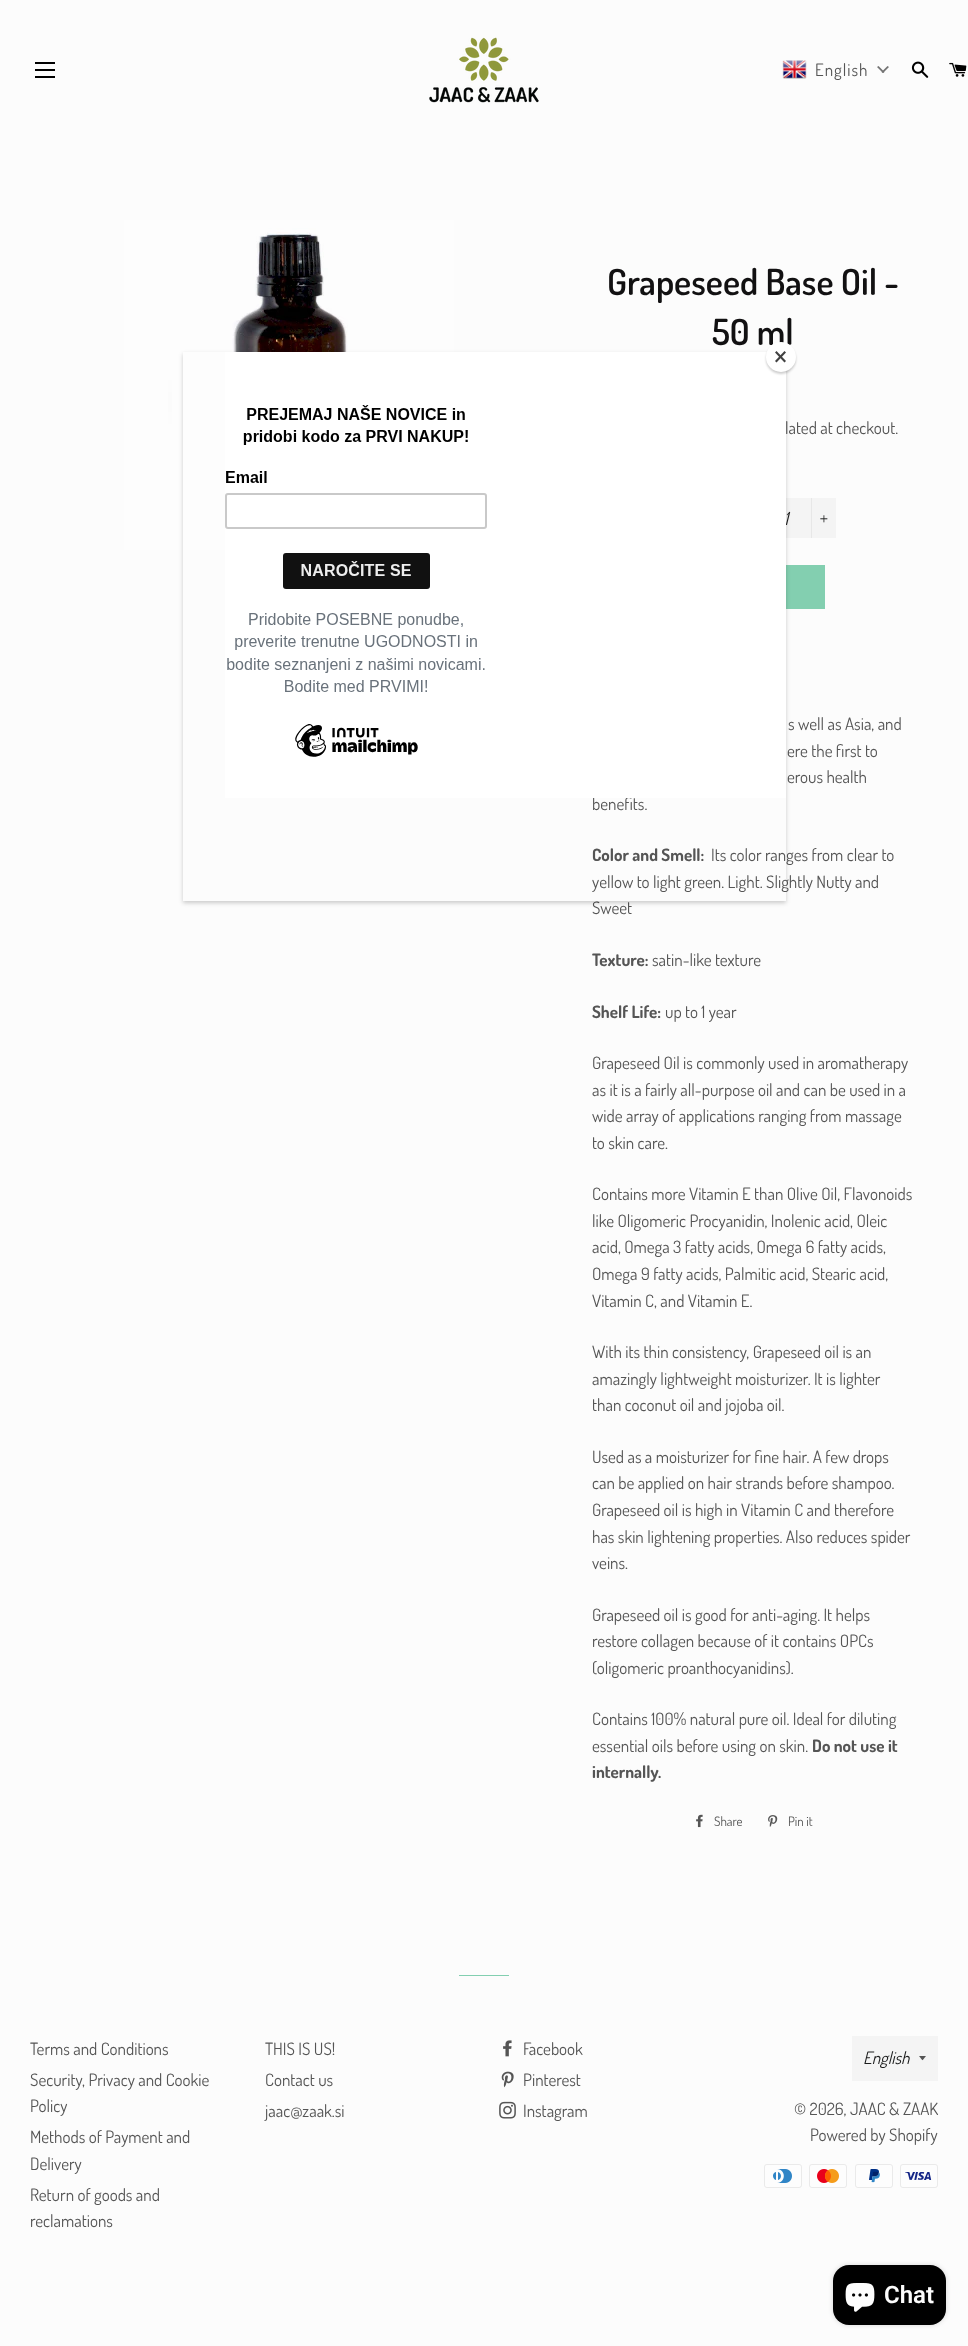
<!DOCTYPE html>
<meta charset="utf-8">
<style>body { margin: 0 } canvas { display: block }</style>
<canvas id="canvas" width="968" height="2346"></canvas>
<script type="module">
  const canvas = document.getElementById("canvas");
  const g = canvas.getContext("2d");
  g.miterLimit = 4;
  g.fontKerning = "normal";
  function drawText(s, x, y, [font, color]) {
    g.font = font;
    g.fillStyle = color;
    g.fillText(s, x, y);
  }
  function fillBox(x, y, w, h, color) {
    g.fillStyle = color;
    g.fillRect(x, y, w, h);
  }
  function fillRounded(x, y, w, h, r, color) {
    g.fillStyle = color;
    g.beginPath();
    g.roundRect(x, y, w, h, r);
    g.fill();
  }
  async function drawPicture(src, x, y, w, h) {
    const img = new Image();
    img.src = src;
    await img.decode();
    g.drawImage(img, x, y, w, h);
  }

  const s1 = ["17px Dosis", "#555555"];
  const s2 = ["600 36px Dosis", "#121112"];
  const s3 = ["italic 18px Dosis", "#1C1D1D"];
  const s4 = ["bold 17px Dosis", "#555555"];
  const s5 = ["13px Dosis", "#555555"];
  const s6 = ["italic 17px Dosis", "#1C1D1D"];
  const s7 = ["600 24px Roboto", "#FCFCFC"];

  fillBox(0, 0, 968, 2346, "#FCFCFC");
  fillBox(35, 62, 20, 2, "#000000");
  fillBox(35, 69, 20, 2, "#000000");
  fillBox(35, 76, 20, 2, "#000000");
  await drawPicture("pic1.png", 429, 37, 110, 66);
  await drawPicture("pic2.png", 782, 60, 25, 19);
  g.letterSpacing = "1px";
  drawText("English", 815, 76, s1);
  g.fillStyle = "#737373";
  g.beginPath();
  g.moveTo(887.5, 66);
  g.lineTo(889, 67);
  g.lineTo(883, 73);
  g.lineTo(881.5, 72);
  g.closePath();
  g.fill();
  g.beginPath();
  g.moveTo(878.5, 66);
  g.lineTo(884.5, 72);
  g.lineTo(883, 73);
  g.lineTo(877, 67);
  g.closePath();
  g.fill();
  await drawPicture("pic3.png", 911, 61, 18, 17);
  await drawPicture("pic4.png", 949, 62, 18, 15);
  await drawPicture("pic5.png", 124, 220, 330, 330);
  g.letterSpacing = "0px";
  drawText("Grapeseed Base Oil -", 607, 295, s2);
  drawText("50 ml", 712, 345, s2);
  drawText("lated at checkout.", 785, 434, s1);
  fillBox(786, 498, 50, 40, "#F4F4F4");
  drawText("1", 784, 525, s3);
  fillBox(811, 498, 1, 40, "#E7E7E7");
  await drawPicture("pic6.png", 820, 515, 8, 8);
  fillBox(786, 565, 39, 44, "#83CFB0");
  drawText("s well as Asia, and", 788, 730, s1);
  drawText("ere the first to", 787, 757, s1);
  drawText("erous health", 787, 783, s1);
  drawText("benefits.", 592, 810, s1);
  drawText("Color and Smell:", 592, 861, s4);
  drawText("Its color ranges from clear to", 711, 861, s1);
  drawText("yellow to light green. Light. Slightly Nutty and", 592, 888, s1);
  drawText("Sweet", 592, 914, s1);
  drawText("Texture:", 592, 966, s4);
  drawText("satin-like texture", 652, 966, s1);
  drawText("Shelf Life:", 592, 1018, s4);
  drawText("up to 1 year", 665, 1018, s1);
  drawText("Grapeseed Oil is commonly used in aromatherapy", 592, 1069, s1);
  drawText("as it is a fairly all-purpose oil and can be used in a", 592, 1096, s1);
  drawText("wide array of applications ranging from massage", 592, 1122, s1);
  drawText("to skin care.", 592, 1149, s1);
  drawText("Contains more Vitamin E than Olive Oil, Flavonoids", 592, 1200, s1);
  drawText("like Oligomeric Procyanidin, Inolenic acid, Oleic", 592, 1227, s1);
  drawText("acid, Omega 3 fatty acids, Omega 6 fatty acids,", 592, 1253, s1);
  drawText("Omega 9 fatty acids, Palmitic acid, Stearic acid,", 592, 1280, s1);
  drawText("Vitamin C, and Vitamin E.", 592, 1307, s1);
  drawText("With its thin consistency, Grapeseed oil is an", 592, 1358, s1);
  drawText("amazingly lightweight moisturizer. It is lighter", 592, 1385, s1);
  drawText("than coconut oil and jojoba oil.", 592, 1411, s1);
  drawText("Used as a moisturizer for fine hair. A few drops", 592, 1463, s1);
  drawText("can be applied on hair strands before shampoo.", 592, 1489, s1);
  drawText("Grapeseed oil is high in Vitamin C and therefore", 592, 1516, s1);
  drawText("has skin lightening properties. Also reduces spider", 592, 1543, s1);
  drawText("veins.", 592, 1569, s1);
  drawText("Grapeseed oil is good for anti-aging. It helps", 592, 1621, s1);
  drawText("restore collagen because of it contains OPCs", 592, 1647, s1);
  drawText("(oligomeric proanthocyanidins).", 592, 1674, s1);
  drawText("Contains 100% natural pure oil. Ideal for diluting", 592, 1725, s1);
  drawText("essential oils before using on skin.", 592, 1752, s1);
  drawText("Do not use it", 812, 1752, s4);
  drawText("internally.", 592, 1778, s4);
  await drawPicture("pic7.png", 696, 1814, 7, 14);
  drawText("Share", 714, 1826, s5);
  await drawPicture("pic8.png", 768, 1815, 10, 12);
  drawText("Pin it", 788, 1826, s5);
  fillBox(459, 1975, 50, 1, "#83CFB0");
  drawText("Terms and Conditions", 30, 2055, s1);
  drawText("Security, Privacy and Cookie", 30, 2086, s1);
  drawText("Policy", 30, 2112, s1);
  drawText("Methods of Payment and", 30, 2143, s1);
  drawText("Delivery", 30, 2170, s1);
  drawText("Return of goods and", 30, 2201, s1);
  drawText("reclamations", 30, 2227, s1);
  drawText("THIS IS US!", 265, 2055, s1);
  drawText("Contact us", 265, 2086, s1);
  drawText("jaac@zaak.si", 265, 2117, s1);
  await drawPicture("pic9.png", 503, 2040, 9, 17);
  drawText("Facebook", 523, 2055, s1);
  await drawPicture("pic10.png", 501, 2071, 13, 17);
  drawText("Pinterest", 523, 2086, s1);
  await drawPicture("pic11.png", 499, 2101, 17, 18);
  drawText("Instagram", 523, 2117, s1);
  fillBox(852, 2036, 86, 45, "#F4F4F4");
  g.fillStyle = "#555555";
  g.beginPath();
  g.moveTo(919, 2056);
  g.bezierCurveTo(923.5, 2061.5, 921.5, 2061.5, 926, 2056);
  g.closePath();
  g.fill();
  drawText("English", 863, 2064, s6);
  drawText("© 2026, JAAC & ZAAK", 794, 2115, s1);
  drawText("Powered by Shopify", 810, 2141, s1);
  await drawPicture("pic12.png", 764, 2164, 38, 24);
  await drawPicture("pic13.png", 809, 2164, 38, 24);
  await drawPicture("pic14.png", 855, 2164, 38, 24);
  await drawPicture("pic15.png", 900, 2164, 38, 24);
  g.save();
  g.beginPath();
  g.moveTo(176, 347);
  g.lineTo(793, 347);
  g.lineTo(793, 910);
  g.lineTo(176, 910);
  g.closePath();
  g.moveTo(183, 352);
  g.lineTo(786, 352);
  g.lineTo(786, 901);
  g.lineTo(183, 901);
  g.closePath();
  g.clip("evenodd");
  g.fillStyle = "rgba(0, 0, 0, 0.2)";
  g.filter = "blur(2px)";
  g.beginPath();
  g.rect(183, 354, 603, 549);
  g.fill();
  g.filter = "none";
  g.restore();
  await drawPicture("pic16.png", 225, 352, 561, 446);
  g.fillStyle = "rgba(0, 0, 0, 0.2)";
  g.filter = "blur(1px)";
  g.beginPath();
  g.roundRect(766, 344, 30, 30, 15);
  g.fill();
  g.filter = "none";
  g.fillStyle = "#FFFFFF";
  g.beginPath();
  g.arc(781, 357, 15, 0, Math.PI * 2);
  g.fill();
  g.fillStyle = "#414141";
  g.beginPath();
  g.moveTo(784.5, 351);
  g.lineTo(786, 352.5);
  g.lineTo(776.5, 362.5);
  g.lineTo(775, 361);
  g.closePath();
  g.fill();
  g.beginPath();
  g.moveTo(775, 352.5);
  g.lineTo(776.5, 351);
  g.lineTo(786, 361);
  g.lineTo(784.5, 362.5);
  g.closePath();
  g.fill();
  g.fillStyle = "rgba(0, 0, 0, 0.15)";
  g.filter = "blur(2.5px)";
  g.beginPath();
  g.roundRect(833, 2265, 113, 60, 16);
  g.fill();
  g.filter = "none";
  fillRounded(833, 2265, 113, 60, 16, "#000000");
  await drawPicture("pic17.png", 845, 2283, 30, 29);
  drawText("Chat", 884, 2303, s7);
</script>
